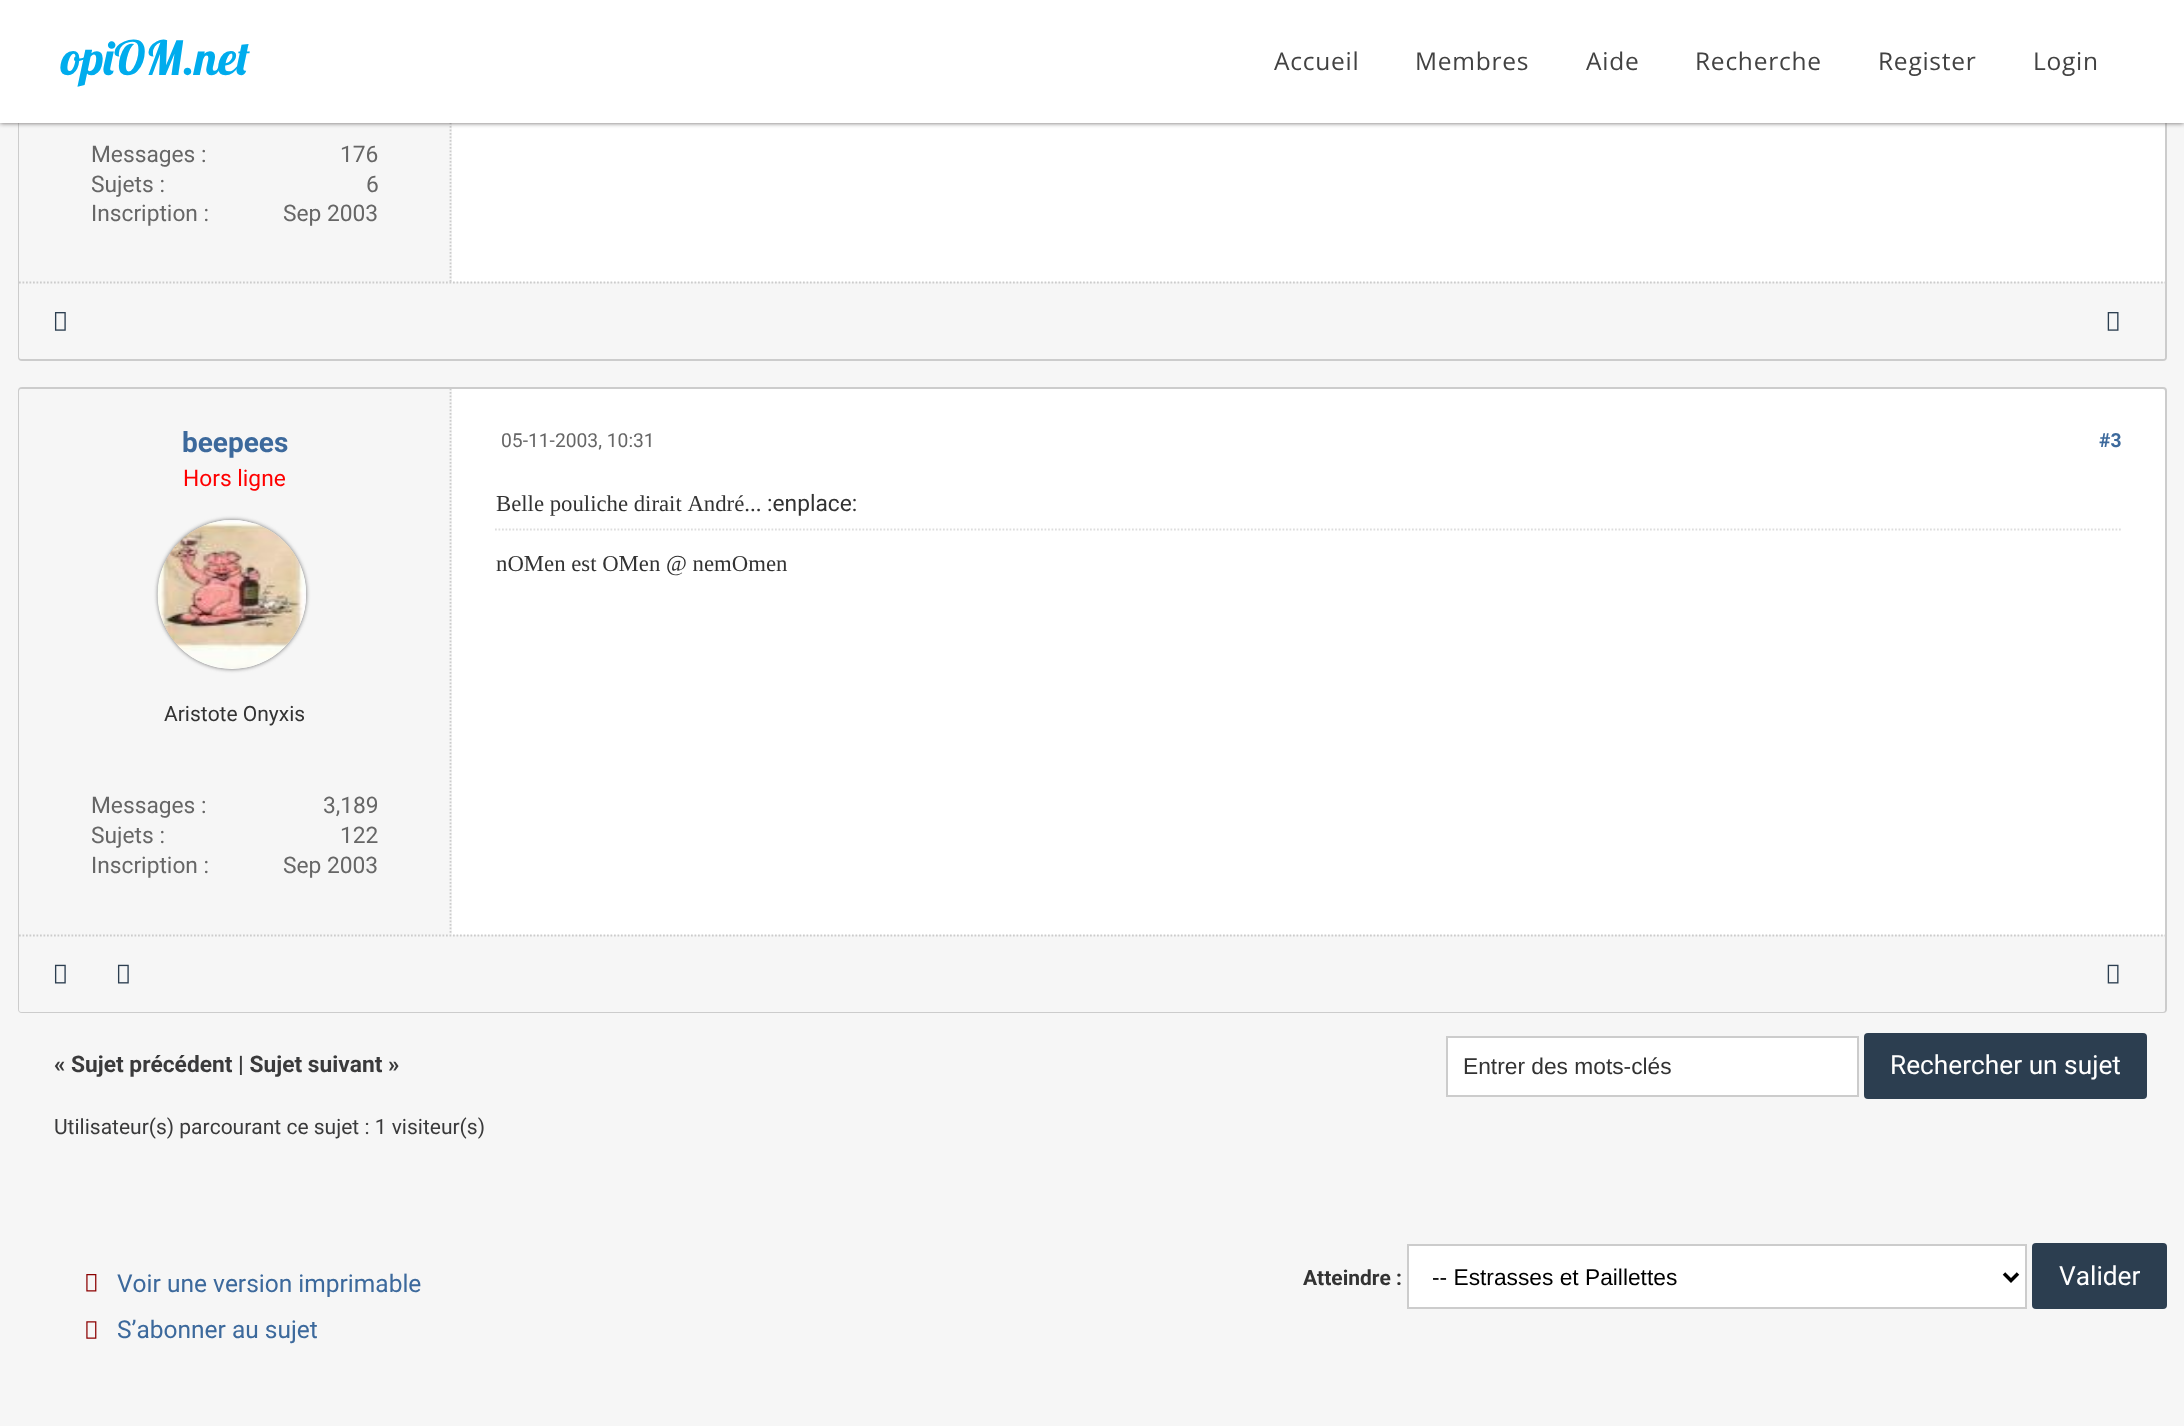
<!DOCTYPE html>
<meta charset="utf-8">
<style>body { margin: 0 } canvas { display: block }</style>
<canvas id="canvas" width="2184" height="1426"></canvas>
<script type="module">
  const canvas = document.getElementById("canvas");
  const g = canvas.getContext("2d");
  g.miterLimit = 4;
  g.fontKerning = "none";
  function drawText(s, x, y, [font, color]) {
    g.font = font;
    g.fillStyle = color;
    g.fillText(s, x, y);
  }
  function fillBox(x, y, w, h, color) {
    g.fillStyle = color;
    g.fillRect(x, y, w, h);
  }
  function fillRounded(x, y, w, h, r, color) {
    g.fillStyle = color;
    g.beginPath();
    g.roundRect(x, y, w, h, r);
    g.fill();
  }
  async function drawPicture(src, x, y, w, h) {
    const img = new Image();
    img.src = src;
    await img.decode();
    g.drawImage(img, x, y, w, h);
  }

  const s1 = ["47.25px Lobster", "#00ACED"];
  const s2 = ["24.5px Open Sans", "#424242"];
  const s3 = ["22.75px Roboto", "#666666"];
  const s4 = ["bold 28px Roboto", "#3C699C"];
  const s5 = ["22.75px Roboto", "#FF0000"];
  const s6 = ["21px Roboto", "#333333"];
  const s7 = ["19.25px Roboto", "#666666"];
  const s8 = ["bold 19.25px Roboto", "#3C699C"];
  const s9 = ["22.75px Liberation Serif", "#333333"];
  const s10 = ["22.75px Roboto", "#333333"];
  const s11 = ["bold 22.75px Roboto", "#3A3A3B"];
  const s12 = ["21px Roboto", "#3A3A3B"];
  const s13 = ["22.75px Liberation Sans", "#333333"];
  const s14 = ["26.25px Roboto", "#FFFFFF"];
  const s15 = ["24.5px Roboto", "#3C699C"];
  const s16 = ["bold 21px Roboto", "#333333"];
  const s17 = ["22.75px Liberation Sans", "#000000"];

  fillBox(0, 0, 2184, 1426, "#F6F6F6");
  g.fillStyle = "#FFFFFF";
  g.beginPath();
  g.roundRect(19, -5, 2147, 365, 3);
  g.fill();
  g.strokeStyle = "#CCCCCC";
  g.lineWidth = 2;
  g.stroke();
  fillBox(19, 123, 433, 159, "#F6F6F6");
  g.beginPath();
  g.moveTo(450.5, -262.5);
  g.lineTo(450.5, 282);
  g.lineWidth = 1.8;
  g.setLineDash([1.75, 1.75]);
  g.stroke();
  g.fillStyle = "#656161";
  g.filter = "blur(2.5px)";
  g.beginPath();
  g.rect(0, 0, 2184, 123);
  g.fill();
  g.filter = "none";
  fillBox(0, 0, 2184, 123, "#FFFFFF");
  drawText("opiOM.net", 61, 75, s1);
  g.letterSpacing = "0.75px";
  drawText("Accueil", 1274, 70, s2);
  drawText("Membres", 1415, 70, s2);
  drawText("Aide", 1586, 70, s2);
  drawText("Recherche", 1695, 70, s2);
  drawText("Register", 1878, 70, s2);
  drawText("Login", 2033, 70, s2);
  g.letterSpacing = "0px";
  drawText("Messages :", 91, 162, s3);
  drawText("176", 340, 162, s3);
  drawText("Sujets :", 91, 192, s3);
  drawText("6", 366, 192, s3);
  drawText("Inscription :", 91, 221, s3);
  drawText("Sep 2003", 283, 221, s3);
  g.fillStyle = "#F6F6F6";
  g.beginPath();
  g.roundRect(19, 282, 2146, 77, [0, 0, 2, 2]);
  g.fill();
  g.beginPath();
  g.moveTo(19, 282.5);
  g.lineTo(2165, 282.5);
  g.stroke();
  await drawPicture("pic1.png", 54, 312, 12, 19);
  await drawPicture("pic2.png", 2107, 312, 12, 19);
  g.fillStyle = "#FFFFFF";
  g.beginPath();
  g.roundRect(19, 388, 2147, 624, 3);
  g.fill();
  g.lineWidth = 2;
  g.setLineDash([]);
  g.stroke();
  g.fillStyle = "#F6F6F6";
  g.beginPath();
  g.roundRect(19, 389, 433, 546, [2, 0, 0, 0]);
  g.fill();
  g.save();
  g.beginPath();
  g.roundRect(19, 389, 2146, 623, 2);
  g.clip();
  g.beginPath();
  g.moveTo(450.5, 388.5);
  g.lineTo(450.5, 934.5);
  g.lineWidth = 1.8;
  g.setLineDash([1.75, 1.75]);
  g.stroke();
  g.restore();
  drawText("beepees", 182, 452, s4);
  drawText("Hors ligne", 183, 486, s5);
  g.fillStyle = "#696969";
  g.filter = "blur(2px)";
  g.beginPath();
  g.roundRect(158, 520, 148, 149, 74);
  g.fill();
  g.filter = "none";
  fillRounded(158, 520, 148, 149, 74, "#FFFFFF");
  await drawPicture("pic3.png", 157, 520, 149, 149);
  drawText("Aristote Onyxis", 164, 721, s6);
  drawText("Messages :", 91, 813, s3);
  drawText("3,189", 323, 813, s3);
  drawText("Sujets :", 91, 843, s3);
  drawText("122", 340, 843, s3);
  drawText("Inscription :", 91, 873, s3);
  drawText("Sep 2003", 283, 873, s3);
  drawText("05-11-2003, 10:31", 501, 447, s7);
  drawText("#3", 2099, 447, s8);
  drawText("Belle pouliche dirait André...", 496, 511, s9);
  drawText(":enplace:", 767, 511, s10);
  g.beginPath();
  g.moveTo(495, 529.5);
  g.lineTo(2121, 529.5);
  g.strokeStyle = "#DDDDDD";
  g.lineWidth = 1.8;
  g.setLineDash([1.75, 1.75]);
  g.stroke();
  drawText("nOMen est OMen @ nemOmen", 496, 571, s9);
  g.fillStyle = "#F6F6F6";
  g.beginPath();
  g.roundRect(19, 935, 2146, 77, [0, 0, 2, 2]);
  g.fill();
  g.beginPath();
  g.moveTo(19, 935.5);
  g.lineTo(2165, 935.5);
  g.strokeStyle = "#CCCCCC";
  g.stroke();
  await drawPicture("pic4.png", 54, 964, 12, 20);
  await drawPicture("pic4.png", 117, 964, 12, 20);
  await drawPicture("pic5.png", 2107, 964, 12, 20);
  drawText("« Sujet précédent | Sujet suivant »", 54, 1072, s11);
  drawText("Utilisateur(s) parcourant ce sujet : 1 visiteur(s)", 54, 1134, s12);
  g.fillStyle = "#FFFFFF";
  g.beginPath();
  g.rect(1447, 1037, 411, 59);
  g.fill();
  g.lineWidth = 2;
  g.setLineDash([]);
  g.stroke();
  drawText("Entrer des mots-clés", 1463, 1074, s13);
  fillRounded(1864, 1033, 283, 66, 4, "#2C3E50");
  drawText("Rechercher un sujet", 1890, 1074, s14);
  await drawPicture("pic6.png", 86, 1274, 11, 18);
  drawText("Voir une version imprimable", 117, 1292, s15);
  await drawPicture("pic7.png", 86, 1321, 11, 18);
  drawText("S’abonner au sujet", 117, 1338, s15);
  drawText("Atteindre :", 1303, 1285, s16);
  g.fillStyle = "#FFFFFF";
  g.beginPath();
  g.rect(1408, 1245, 618, 63);
  g.fill();
  g.stroke();
  g.beginPath();
  g.moveTo(2004, 1273.5);
  g.lineTo(2011, 1280.5);
  g.lineTo(2018, 1273.5);
  g.strokeStyle = "#000000";
  g.lineWidth = 3.5;
  g.stroke();
  drawText("-- Estrasses et Paillettes", 1432, 1285, s17);
  fillRounded(2032, 1243, 135, 66, 4, "#2C3E50");
  drawText("Valider", 2059, 1285, s14);
</script>
